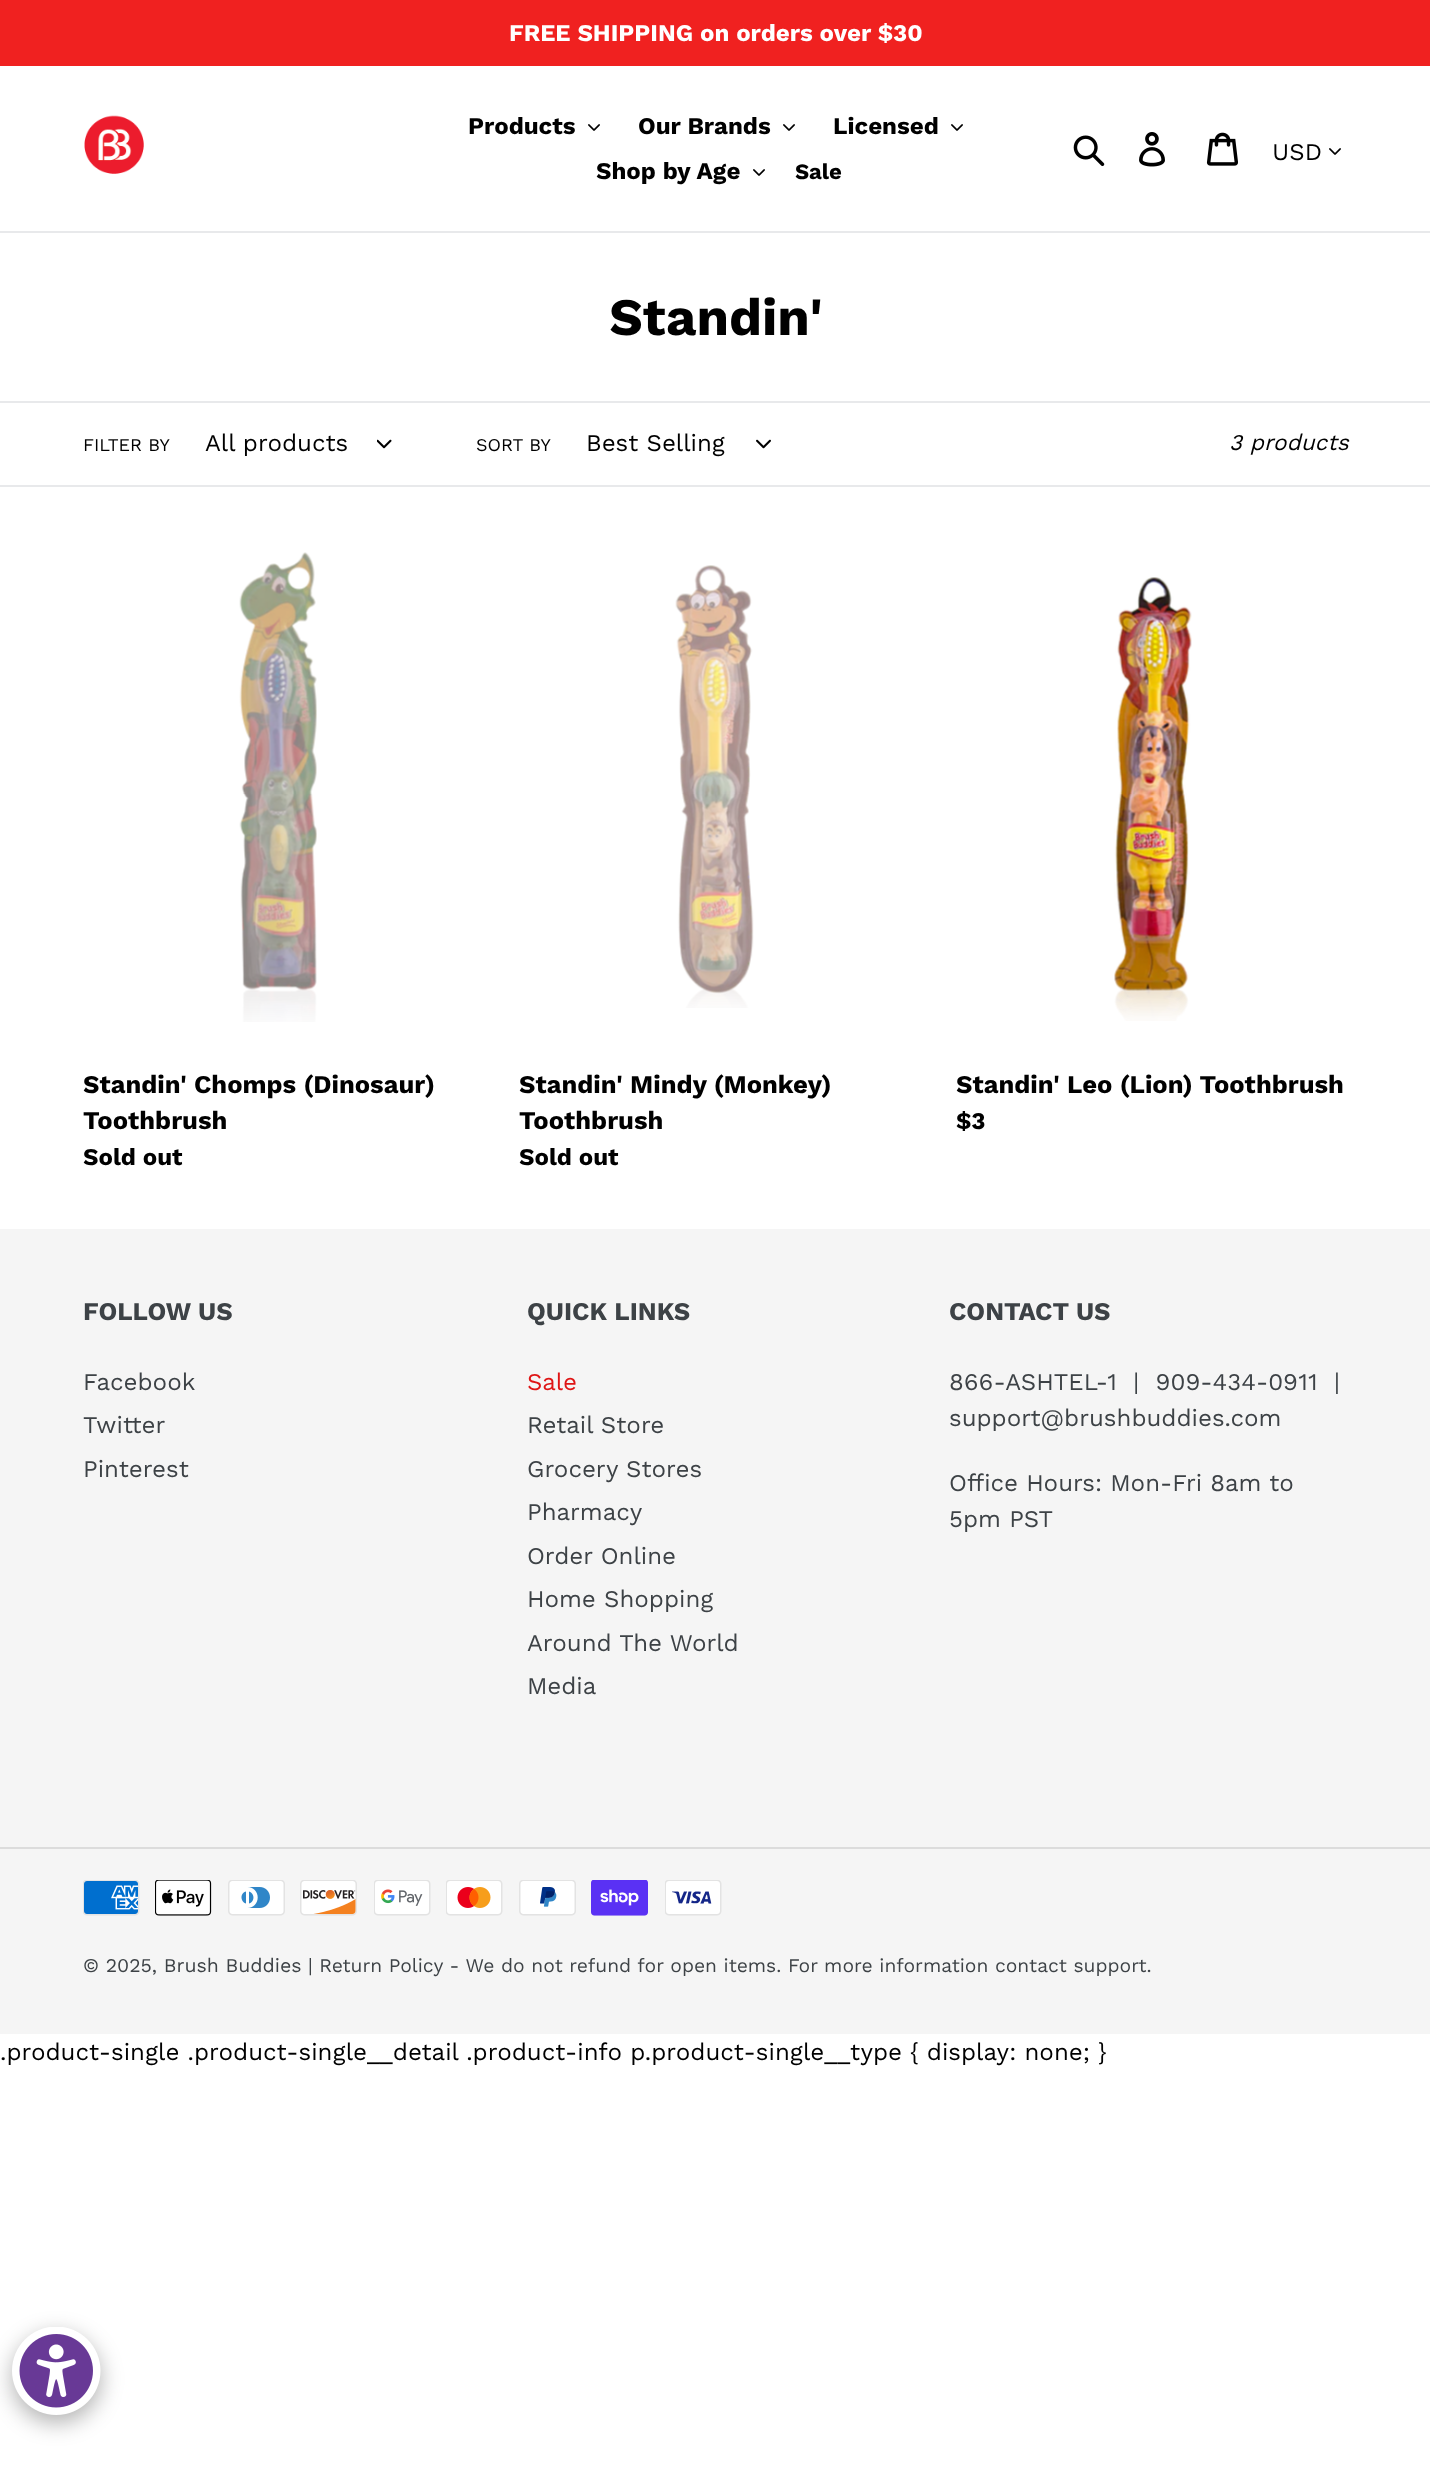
<!DOCTYPE html>
<meta charset="utf-8">
<style>body { margin: 0 } canvas { display: block }</style>
<canvas id="canvas" width="1430" height="2483"></canvas>
<script type="module">
  const canvas = document.getElementById("canvas");
  const g = canvas.getContext("2d");
  g.miterLimit = 4;
  g.fontKerning = "normal";
  function drawText(s, x, y, [font, color]) {
    g.font = font;
    g.fillStyle = color;
    g.fillText(s, x, y);
  }
  function fillBox(x, y, w, h, color) {
    g.fillStyle = color;
    g.fillRect(x, y, w, h);
  }
  async function drawPicture(src, x, y, w, h) {
    const img = new Image();
    img.src = src;
    await img.decode();
    g.drawImage(img, x, y, w, h);
  }

  const s1 = ["bold 24px Work Sans", "#FFFFFF"];
  const s2 = ["bold 24px Work Sans", "#000000"];
  const s3 = ["bold 22px Work Sans", "#000000"];
  const s4 = ["24px Work Sans", "#000000"];
  const s5 = ["bold 52.5px Work Sans", "#000000"];
  const s6 = ["18px Work Sans", "#000000"];
  const s7 = ["italic 22.5px Work Sans", "#000000"];
  const s8 = ["bold 25.5px Work Sans", "#000000"];
  const s9 = ["bold 25.5px Work Sans", "#3D4246"];
  const s10 = ["24px Work Sans", "#3D4246"];
  const s11 = ["24px Work Sans", "#DF1515"];
  const s12 = ["19.5px Work Sans", "#3D4246"];
  const s13 = ["19.2px Work Sans", "#3D4246"];

  fillBox(0, 0, 1430, 2483, "#FFFFFF");
  fillBox(0, 0, 1430, 66, "#F02120");
  drawText("FREE SHIPPING on orders over $30", 509, 41, s1);
  fillBox(0, 231, 1430, 2, "#E8E9EB");
  await drawPicture("pic1.png", 84, 115, 60, 59);
  drawText("Products", 468, 134, s2);
  await drawPicture("pic2.png", 588, 124, 12, 7);
  drawText("Our Brands", 638, 134, s2);
  await drawPicture("pic2.png", 783, 124, 12, 7);
  drawText("Licensed", 833, 134, s2);
  await drawPicture("pic2.png", 951, 124, 12, 7);
  drawText("Shop by Age", 596, 179, s2);
  await drawPicture("pic2.png", 753, 169, 12, 7);
  drawText("Sale", 795, 179, s3);
  await drawPicture("pic3.png", 1073, 135, 32, 32);
  await drawPicture("pic4.png", 1139, 132, 26, 35);
  await drawPicture("pic5.png", 1206, 132, 32, 34);
  drawText("USD", 1272, 160, s4);
  await drawPicture("pic2.png", 1329, 148, 12, 7);
  drawText("Standin'", 609, 335, s5);
  fillBox(0, 401, 1430, 2, "#E8E9EB");
  fillBox(0, 485, 1430, 2, "#E8E9EB");
  drawText("FILTER BY", 83, 451, s6);
  drawText("All products", 205, 451, s4);
  await drawPicture("pic6.png", 377, 439, 15, 10);
  drawText("SORT BY", 476, 451, s6);
  drawText("Best Selling", 586, 451, s4);
  await drawPicture("pic7.png", 756, 439, 15, 10);
  drawText("3 products", 1229, 450, s7);
  await drawPicture("pic8.png", 239, 552, 78, 470);
  drawText("Standin' Chomps (Dinosaur)", 83, 1093, s8);
  drawText("Toothbrush", 83, 1129, s8);
  drawText("Sold out", 83, 1165, s2);
  await drawPicture("pic9.png", 675, 565, 79, 443);
  drawText("Standin' Mindy (Monkey)", 519, 1093, s8);
  drawText("Toothbrush", 519, 1129, s8);
  drawText("Sold out", 519, 1165, s2);
  await drawPicture("pic10.png", 1114, 577, 78, 444);
  drawText("Standin' Leo (Lion) Toothbrush", 956, 1093, s8);
  drawText("$3", 956, 1129, s2);
  fillBox(0, 1229, 1430, 805, "#F5F5F5");
  drawText("FOLLOW US", 83, 1320, s9);
  drawText("Facebook", 83, 1390, s10);
  drawText("Twitter", 83, 1433, s10);
  drawText("Pinterest", 83, 1477, s10);
  drawText("QUICK LINKS", 527, 1320, s9);
  drawText("Sale", 527, 1390, s11);
  drawText("Retail Store", 527, 1433, s10);
  drawText("Grocery Stores", 527, 1477, s10);
  drawText("Pharmacy", 527, 1520, s10);
  drawText("Order Online", 527, 1564, s10);
  drawText("Home Shopping", 527, 1607, s10);
  drawText("Around The World", 527, 1651, s10);
  drawText("Media", 527, 1694, s10);
  drawText("CONTACT US", 949, 1320, s9);
  drawText("866-ASHTEL-1  |  909-434-0911  |", 949, 1390, s10);
  drawText("support@brushbuddies.com", 949, 1426, s10);
  drawText("Office Hours: Mon-Fri 8am to", 949, 1491, s10);
  drawText("5pm PST", 949, 1527, s10);
  fillBox(0, 1847, 1430, 2, "#DCDCDC");
  await drawPicture("pic11.png", 83, 1880, 57, 36);
  await drawPicture("pic12.png", 155, 1880, 57, 36);
  await drawPicture("pic13.png", 228, 1880, 57, 36);
  await drawPicture("pic14.png", 300, 1880, 57, 36);
  await drawPicture("pic15.png", 374, 1880, 57, 36);
  await drawPicture("pic16.png", 446, 1880, 57, 36);
  await drawPicture("pic17.png", 519, 1880, 57, 36);
  await drawPicture("pic18.png", 591, 1880, 57, 36);
  await drawPicture("pic19.png", 665, 1880, 57, 36);
  drawText("© 2025, Brush Buddies", 83, 1972, s12);
  drawText("| Return Policy - We do not refund for open items. For more information contact support.", 308, 1972, s13);
  drawText(".product-single .product-single__detail .product-info p.product-single__type { display: none; }", 0, 2060, s4);
  g.fillStyle = "rgba(0, 0, 0, 0.3)";
  g.filter = "blur(11px)";
  g.beginPath();
  g.roundRect(12, 2334, 89, 89, 44.5);
  g.fill();
  g.filter = "none";
  await drawPicture("pic20.png", 12, 2327, 89, 88);
</script>
